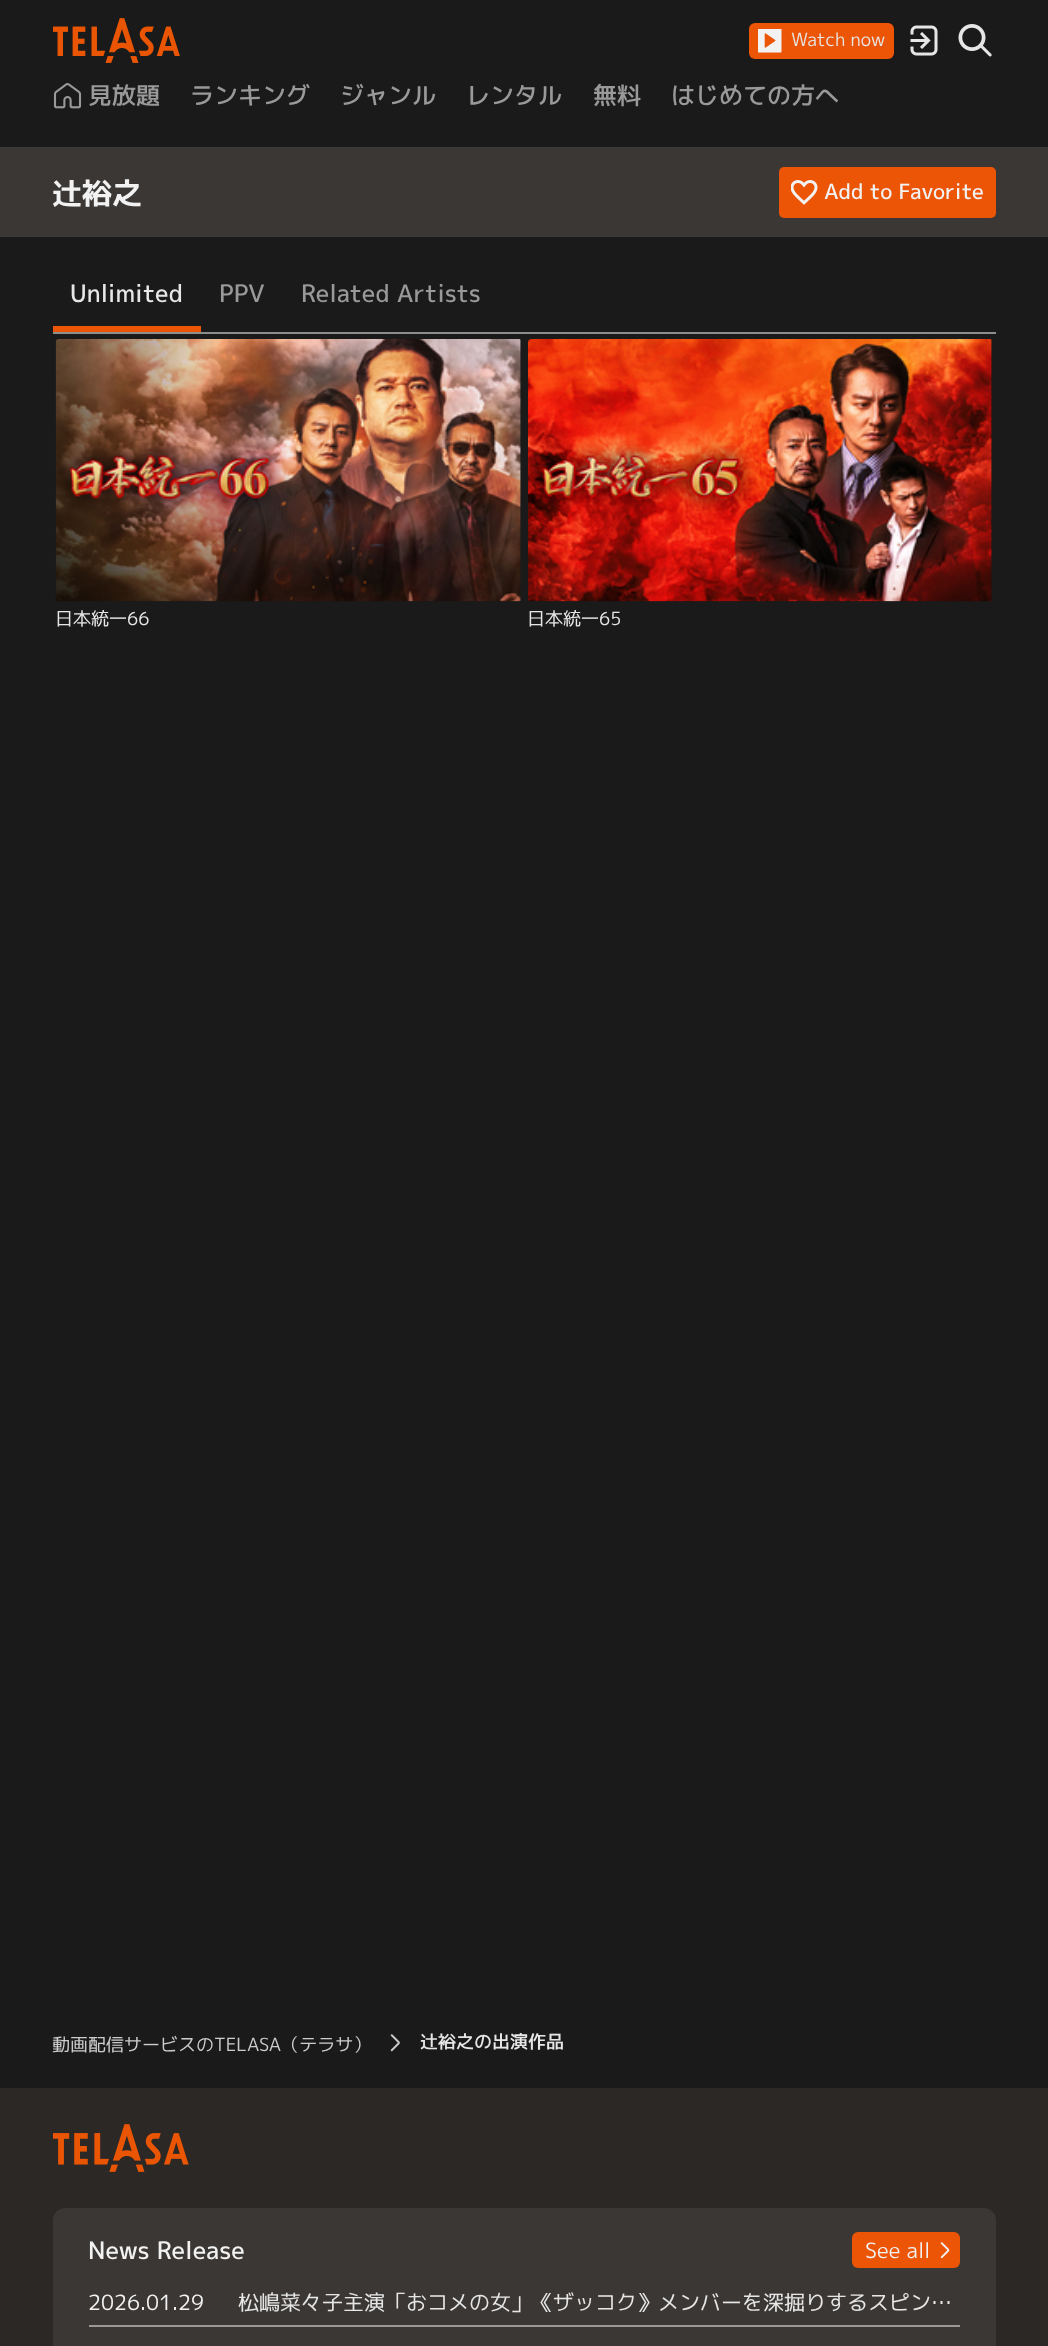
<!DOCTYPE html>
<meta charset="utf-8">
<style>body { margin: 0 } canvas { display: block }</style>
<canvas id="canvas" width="1048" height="2346"></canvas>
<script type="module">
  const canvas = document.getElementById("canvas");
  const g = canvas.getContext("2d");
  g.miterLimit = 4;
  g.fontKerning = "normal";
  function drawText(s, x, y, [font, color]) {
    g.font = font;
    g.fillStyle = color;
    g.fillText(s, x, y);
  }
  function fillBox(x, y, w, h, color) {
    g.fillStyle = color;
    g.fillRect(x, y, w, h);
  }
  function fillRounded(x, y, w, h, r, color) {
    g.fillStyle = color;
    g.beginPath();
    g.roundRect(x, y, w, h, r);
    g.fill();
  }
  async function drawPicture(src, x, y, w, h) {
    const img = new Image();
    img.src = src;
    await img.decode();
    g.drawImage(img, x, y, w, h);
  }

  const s1 = ["18px 'M PLUS 1p'", "#E6E6E6"];
  const s2 = ["500 24px 'M PLUS 1p'", "#999999"];
  const s3 = ["bold 30px 'M PLUS 1p'", "#F2F2F2"];
  const s4 = ["500 21px 'M PLUS 1p'", "#F2F2F2"];
  const s5 = ["500 24px 'M PLUS 1p'", "#E6E6E6"];
  const s6 = ["18px 'M PLUS 1p'", "#CCCCCC"];
  const s7 = ["500 18px 'M PLUS 1p'", "#E6E6E6"];
  const s8 = ["500 24px 'M PLUS 1p'", "#F2F2F2"];
  const s9 = ["21px 'M PLUS 1p'", "#F2F2F2"];
  const s10 = ["21px 'M PLUS 1p'", "#E6E6E6"];

  fillBox(0, 0, 1048, 2346, "#1A1A1A");
  await drawPicture("pic1.png", 53, 18, 127, 45);
  fillRounded(749, 23, 145, 36, 6, "#EB5505");
  await drawPicture("pic2.png", 758, 29, 24, 24);
  drawText("Watch now", 791, 46, s1);
  await drawPicture("pic3.png", 910, 25, 28, 31);
  await drawPicture("pic4.png", 958, 24, 34, 33);
  await drawPicture("pic5.png", 53, 83, 29, 26);
  drawText("見放題", 88, 104, s2);
  drawText("ランキング", 190, 104, s2);
  drawText("ジャンル", 340, 104, s2);
  drawText("レンタル", 466, 104, s2);
  drawText("無料", 593, 104, s2);
  drawText("はじめての方へ", 671, 104, s2);
  fillBox(0, 147, 1048, 90, "#3A3735");
  drawText("辻裕之", 52, 204, s3);
  fillRounded(779, 167, 217, 51, 5, "#EB5505");
  await drawPicture("pic6.png", 791, 180, 27, 25);
  drawText("Add to Favorite", 824, 199, s4);
  fillBox(53, 332, 943, 2, "#8D8D8D");
  fillBox(53, 326, 148, 6, "#EB5505");
  drawText("Unlimited", 70, 302, s5);
  drawText("PPV", 219, 302, s2);
  drawText("Related Artists", 301, 302, s2);
  await drawPicture("pic7.png", 55, 339, 466, 263);
  drawText("日本統一66", 55, 625, s1);
  await drawPicture("pic8.png", 528, 339, 464, 263);
  drawText("日本統一65", 527, 625, s1);
  drawText("動画配信サービスのTELASA（テラサ）", 52, 2051, s6);
  await drawPicture("pic9.png", 390, 2034, 10, 18);
  drawText("辻裕之の出演作品", 420, 2048, s7);
  fillBox(0, 2088, 1048, 258, "#2B2826");
  await drawPicture("pic10.png", 53, 2124, 136, 48);
  fillRounded(53, 2208, 943, 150, 12, "#3A3735");
  drawText("News Release", 88, 2259, s8);
  fillRounded(852, 2232, 108, 36, 6, "#EB5505");
  drawText("See all", 865, 2258, s9);
  await drawPicture("pic11.png", 940, 2242, 10, 17);
  fillBox(89, 2325, 871, 2, "#999999");
  drawText("2026.01.29", 88, 2310, s9);
  drawText("松嶋菜々子主演「おコメの女」《ザッコク》メンバーを深掘りするスピン…", 238, 2310, s10);
</script>
